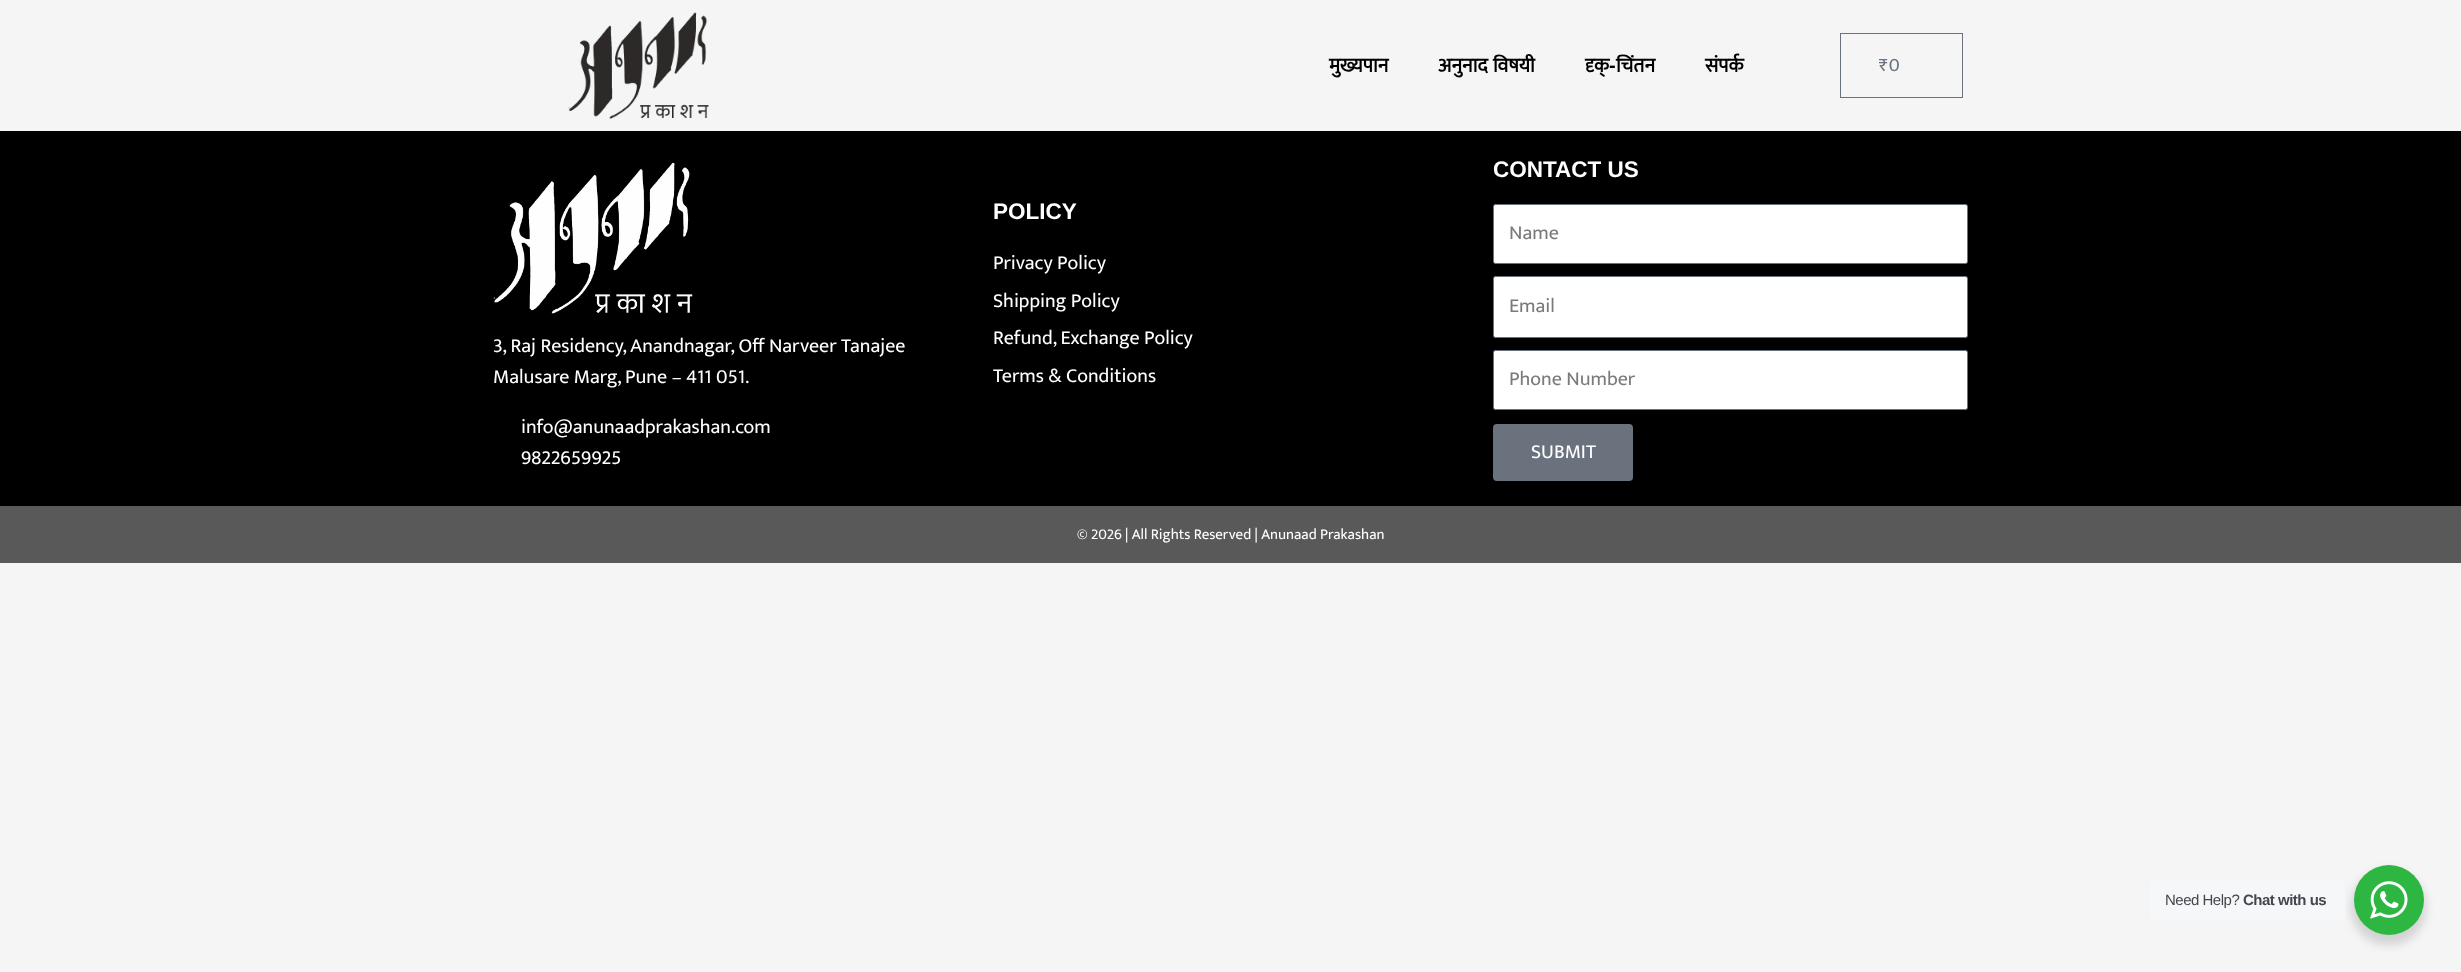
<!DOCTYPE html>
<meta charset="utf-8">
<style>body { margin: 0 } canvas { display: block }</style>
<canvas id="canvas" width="2461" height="972"></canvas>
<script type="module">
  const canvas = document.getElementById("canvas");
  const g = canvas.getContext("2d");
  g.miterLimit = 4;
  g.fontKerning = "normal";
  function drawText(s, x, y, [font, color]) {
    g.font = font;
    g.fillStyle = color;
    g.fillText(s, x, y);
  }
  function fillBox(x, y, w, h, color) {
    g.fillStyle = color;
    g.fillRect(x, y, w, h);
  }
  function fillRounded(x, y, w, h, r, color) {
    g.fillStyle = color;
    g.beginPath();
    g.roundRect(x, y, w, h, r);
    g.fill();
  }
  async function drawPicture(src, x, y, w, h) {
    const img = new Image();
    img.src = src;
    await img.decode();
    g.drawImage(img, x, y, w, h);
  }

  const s1 = ["bold 20px Mukta", "#000000"];
  const s2 = ["bold 20px Liberation Sans", "#000000"];
  const s3 = ["19px Mukta", "#69727D"];
  const s4 = ["bold 22.5px Liberation Sans", "#FFFFFF"];
  const s5 = ["20px Mukta", "#FFFFFF"];
  const s6 = ["20px Mukta", "#797A7C"];
  const s7 = ["15px Mukta", "#FFFFFF"];
  const s8 = ["15px Liberation Sans", "#43474E"];
  const s9 = ["bold 15px Liberation Sans", "#43474E"];

  fillBox(0, 0, 2461, 972, "#F5F5F5");
  await drawPicture("pic1.png", 568, 12, 141, 107);
  drawText("मुख्यपान", 1329, 72, s1);
  g.wordSpacing = "1px";
  drawText("अनुनाद विषयी", 1438, 72, s1);
  g.wordSpacing = "0px";
  drawText("दृक्", 1585, 72, s1);
  drawText("-", 1609, 72, s2);
  drawText("चिंतन", 1616, 72, s1);
  drawText("संपर्क", 1705, 72, s1);
  g.strokeStyle = "#69727D";
  g.strokeRect(1840.5, 33.5, 122, 64);
  drawText("₹0", 1879, 71, s3);
  fillBox(0, 131, 2461, 375, "#000000");
  drawText("POLICY", 993, 219, s4);
  drawText("Privacy Policy", 993, 269, s5);
  drawText("Shipping Policy", 993, 307, s5);
  drawText("Refund, Exchange Policy", 993, 344, s5);
  drawText("Terms & Conditions", 993, 382, s5);
  drawText("CONTACT US", 1493, 177, s4);
  g.beginPath();
  g.roundRect(1493.5, 204.5, 474, 59, 2);
  g.fill();
  g.stroke();
  drawText("Name", 1509, 239, s6);
  g.fillStyle = "#FFFFFF";
  g.beginPath();
  g.roundRect(1493.5, 276.5, 474, 61, 2);
  g.fill();
  g.stroke();
  drawText("Email", 1509, 312, s6);
  g.fillStyle = "#FFFFFF";
  g.beginPath();
  g.roundRect(1493.5, 350.5, 474, 59, 2);
  g.fill();
  g.stroke();
  drawText("Phone Number", 1509, 385, s6);
  fillRounded(1493, 424, 140, 57, 4, "#69727D");
  drawText("SUBMIT", 1531, 458, s5);
  await drawPicture("pic2.png", 493, 162, 200, 152);
  drawText("3, Raj Residency, Anandnagar, Off Narveer Tanajee", 493, 352, s5);
  drawText("Malusare Marg, Pune – 411 051.", 493, 383, s5);
  drawText("info@anunaadprakashan.com", 521, 433, s5);
  drawText("9822659925", 521, 464, s5);
  fillBox(0, 506, 2461, 57, "#595959");
  drawText("© 2026 | All Rights Reserved | Anunaad Prakashan", 1077, 539, s7);
  g.fillStyle = "rgba(0, 0, 0, 0.14)";
  g.filter = "blur(5px)";
  g.beginPath();
  g.roundRect(2351, 870, 75, 75, 37.5);
  g.fill();
  g.filter = "none";
  fillRounded(2150, 879, 195, 42, 5, "#F5F7F9");
  g.letterSpacing = "-0.5px";
  drawText("Need Help?", 2165, 905, s8);
  drawText("Chat with us", 2243, 905, s9);
  g.fillStyle = "#2DB742";
  g.beginPath();
  g.arc(2389, 900, 35, 0, Math.PI * 2);
  g.fill();
  await drawPicture("pic3.png", 2370, 881, 38, 38);
</script>
